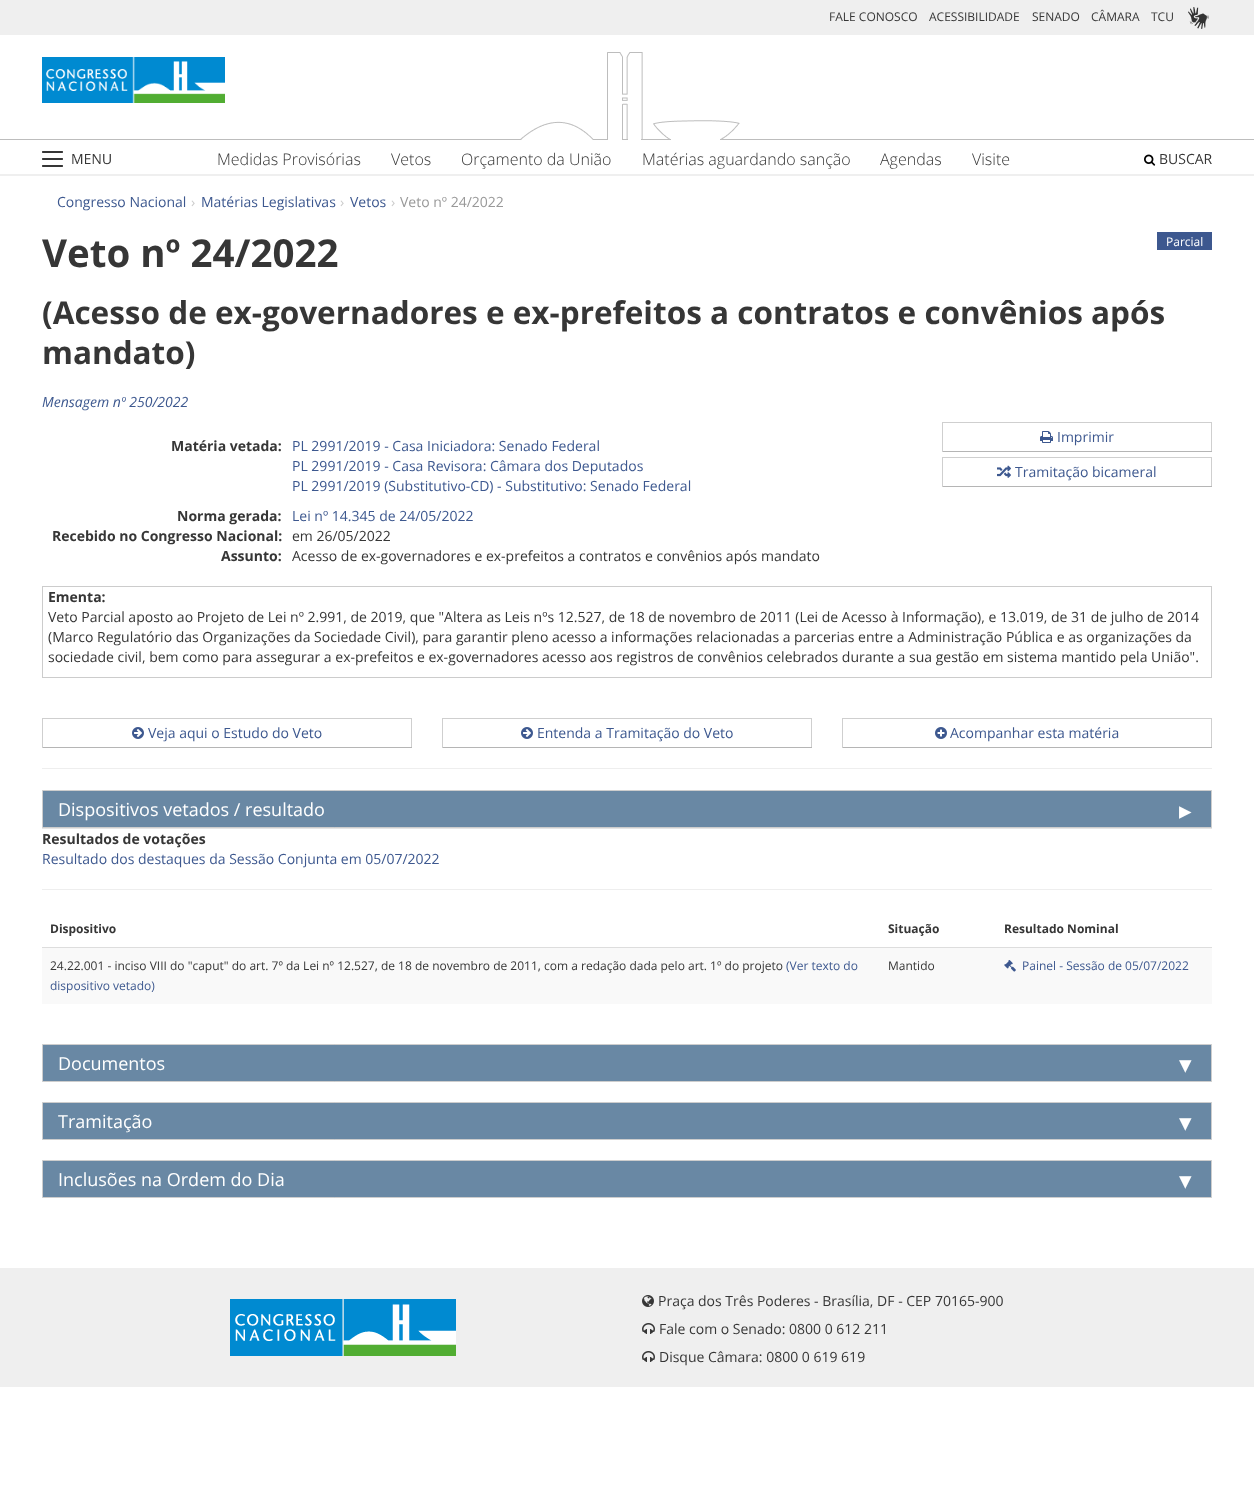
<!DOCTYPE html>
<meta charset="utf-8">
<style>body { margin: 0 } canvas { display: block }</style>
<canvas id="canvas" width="1254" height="1490"></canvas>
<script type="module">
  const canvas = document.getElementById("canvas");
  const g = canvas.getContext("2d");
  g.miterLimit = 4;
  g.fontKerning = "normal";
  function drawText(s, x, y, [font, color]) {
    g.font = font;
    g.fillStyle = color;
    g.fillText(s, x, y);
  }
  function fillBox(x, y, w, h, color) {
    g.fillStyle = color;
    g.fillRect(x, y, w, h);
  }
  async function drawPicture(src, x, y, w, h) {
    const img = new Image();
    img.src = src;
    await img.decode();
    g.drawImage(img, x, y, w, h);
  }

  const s1 = ["12px Open Sans", "#363636"];
  const s2 = ["300 16px Open Sans", "#363636"];
  const s3 = ["14px Open Sans", "#363636"];
  const s4 = ["14px Open Sans", "#3D588F"];
  const s5 = ["14px Open Sans", "#CCCCCC"];
  const s6 = ["14px Open Sans", "#999999"];
  const s7 = ["bold 38.5px Open Sans", "#363636"];
  const s8 = ["12px Open Sans", "#FFFFFF"];
  const s9 = ["bold 31.5px Open Sans", "#363636"];
  const s10 = ["italic 14px Open Sans", "#3D588F"];
  const s11 = ["bold 14px Open Sans", "#363636"];
  const s12 = ["18px Open Sans", "#FFFFFF"];
  const s13 = ["25px DejaVu Sans", "#FFFFFF"];
  const s14 = ["bold 12px Open Sans", "#363636"];
  const s15 = ["12px Open Sans", "#3D588F"];

  fillBox(0, 0, 1254, 1490, "#FFFFFF");
  fillBox(0, 0, 1254, 35, "#EFEFEF");
  drawText("FALE CONOSCO", 829, 21, s1);
  drawText("ACESSIBILIDADE", 929, 21, s1);
  drawText("SENADO", 1032, 21, s1);
  drawText("CÂMARA", 1091, 21, s1);
  drawText("TCU", 1151, 21, s1);
  await drawPicture("pic1.png", 1188, 7, 21, 22);
  fillBox(0, 139, 1254, 1, "#BDBDBD");
  await drawPicture("pic2.png", 42, 57, 183, 46);
  await drawPicture("pic3.png", 520, 52, 220, 88);
  fillBox(0, 174, 1254, 2, "#EFEFEF");
  await drawPicture("pic4.png", 42, 151, 69, 16);
  drawText("Medidas Provisórias", 217, 165, s2);
  drawText("Vetos", 391, 165, s2);
  drawText("Orçamento da União", 461, 165, s2);
  drawText("Matérias aguardando sanção", 642, 165, s2);
  drawText("Agendas", 880, 165, s2);
  drawText("Visite", 972, 165, s2);
  await drawPicture("pic5.png", 1144, 154, 12, 12);
  drawText("BUSCAR", 1159, 164, s3);
  drawText("Congresso Nacional", 57, 207, s4);
  drawText("›", 191, 207, s5);
  drawText("Matérias Legislativas", 201, 207, s4);
  drawText("›", 340, 207, s5);
  drawText("Vetos", 350, 207, s4);
  drawText("›", 391, 207, s5);
  drawText("Veto nº 24/2022", 400, 207, s6);
  drawText("Veto nº 24/2022", 42, 267, s7);
  fillBox(1157, 232, 55, 18, "#3D588F");
  drawText("Parcial", 1166, 246, s8);
  drawText("(Acesso de ex-governadores e ex-prefeitos a contratos e convênios após", 42, 324, s9);
  drawText("mandato)", 42, 364, s9);
  drawText("Mensagem nº 250/2022", 42, 407, s10);
  drawText("Matéria vetada:", 171, 451, s11);
  drawText("PL 2991/2019 - Casa Iniciadora: Senado Federal", 292, 451, s4);
  drawText("PL 2991/2019 - Casa Revisora: Câmara dos Deputados", 292, 471, s4);
  drawText("PL 2991/2019 (Substitutivo-CD) - Substitutivo: Senado Federal", 292, 491, s4);
  drawText("Norma gerada:", 177, 521, s11);
  drawText("Lei nº 14.345 de 24/05/2022", 292, 521, s4);
  drawText("Recebido no Congresso Nacional:", 52, 541, s11);
  drawText("em 26/05/2022", 292, 541, s3);
  drawText("Assunto:", 221, 561, s11);
  drawText("Acesso de ex-governadores e ex-prefeitos a contratos e convênios após mandato", 292, 561, s3);
  fillBox(942, 422, 270, 1, "#CFCFCF");
  fillBox(1211, 422, 1, 30, "#CFCFCF");
  fillBox(942, 451, 270, 1, "#B5B5B5");
  fillBox(942, 422, 1, 30, "#CFCFCF");
  await drawPicture("pic6.png", 1040, 431, 13, 12);
  drawText("Imprimir", 1057, 442, s4);
  fillBox(942, 457, 270, 1, "#CFCFCF");
  fillBox(1211, 457, 1, 30, "#CFCFCF");
  fillBox(942, 486, 270, 1, "#B5B5B5");
  fillBox(942, 457, 1, 30, "#CFCFCF");
  await drawPicture("pic7.png", 997, 465, 14, 13);
  drawText("Tramitação bicameral", 1015, 477, s4);
  g.strokeStyle = "#CCCCCC";
  g.strokeRect(42.5, 586.5, 1169, 91);
  drawText("Ementa:", 48, 602, s11);
  drawText("Veto Parcial aposto ao Projeto de Lei nº 2.991, de 2019, que \"Altera as Leis nºs 12.527, de 18 de novembro de 2011 (Lei de Acesso à Informação), e 13.019, de 31 de julho de 2014", 48, 622, s3);
  drawText("(Marco Regulatório das Organizações da Sociedade Civil), para garantir pleno acesso a informações relacionadas a parcerias entre a Administração Pública e as organizações da", 48, 642, s3);
  drawText("sociedade civil, bem como para assegurar a ex-prefeitos e ex-governadores acesso aos registros de convênios celebrados durante a sua gestão em sistema mantido pela União\".", 48, 662, s3);
  fillBox(42, 718, 370, 1, "#CFCFCF");
  fillBox(411, 718, 1, 30, "#CFCFCF");
  fillBox(42, 747, 370, 1, "#B5B5B5");
  fillBox(42, 718, 1, 30, "#CFCFCF");
  await drawPicture("pic8.png", 132, 727, 12, 12);
  drawText("Veja aqui o Estudo do Veto", 148, 738, s4);
  fillBox(442, 718, 370, 1, "#CFCFCF");
  fillBox(811, 718, 1, 30, "#CFCFCF");
  fillBox(442, 747, 370, 1, "#B5B5B5");
  fillBox(442, 718, 1, 30, "#CFCFCF");
  await drawPicture("pic8.png", 521, 727, 12, 12);
  drawText("Entenda a Tramitação do Veto", 537, 738, s4);
  fillBox(842, 718, 370, 1, "#CFCFCF");
  fillBox(1211, 718, 1, 30, "#CFCFCF");
  fillBox(842, 747, 370, 1, "#B5B5B5");
  fillBox(842, 718, 1, 30, "#CFCFCF");
  await drawPicture("pic9.png", 935, 727, 12, 12);
  drawText("Acompanhar esta matéria", 950, 738, s4);
  fillBox(42, 768, 1170, 1, "#EEEEEE");
  g.fillStyle = "#6988A4";
  g.beginPath();
  g.rect(42.5, 790.5, 1169, 37);
  g.fill();
  g.strokeStyle = "#CDCDCD";
  g.stroke();
  drawText("Dispositivos vetados / resultado", 58, 816, s12);
  drawText("▸", 1179, 819, s13);
  fillBox(42, 828, 1170, 1, "#E5E5E5");
  drawText("Resultados de votações", 42, 844, s11);
  drawText("Resultado dos destaques da Sessão Conjunta em 05/07/2022", 42, 864, s4);
  fillBox(42, 889, 1170, 1, "#EEEEEE");
  drawText("Dispositivo", 50, 933, s14);
  drawText("Situação", 888, 933, s14);
  drawText("Resultado Nominal", 1004, 933, s14);
  fillBox(42, 948, 1170, 56, "#F9F9F9");
  drawText("24.22.001 - inciso VIII do \"caput\" do art. 7º da Lei nº 12.527, de 18 de novembro de 2011, com a redação dada pelo art. 1º do projeto", 50, 970, s1);
  drawText("(Ver texto do", 786, 970, s15);
  drawText("dispositivo vetado)", 50, 990, s15);
  drawText("Mantido", 888, 970, s1);
  fillBox(42, 947, 1170, 1, "#DDDDDD");
  await drawPicture("pic10.png", 1004, 960, 12, 12);
  drawText("Painel - Sessão de 05/07/2022", 1022, 970, s15);
  g.fillStyle = "#6988A4";
  g.beginPath();
  g.rect(42.5, 1044.5, 1169, 37);
  g.fill();
  g.stroke();
  drawText("Documentos", 58, 1070, s12);
  drawText("▾", 1179, 1073, s13);
  g.fillStyle = "#6988A4";
  g.beginPath();
  g.rect(42.5, 1102.5, 1169, 37);
  g.fill();
  g.stroke();
  drawText("Tramitação", 58, 1128, s12);
  drawText("▾", 1179, 1131, s13);
  g.fillStyle = "#6988A4";
  g.beginPath();
  g.rect(42.5, 1160.5, 1169, 37);
  g.fill();
  g.stroke();
  drawText("Inclusões na Ordem do Dia", 58, 1186, s12);
  drawText("▾", 1179, 1189, s13);
  fillBox(0, 1268, 1254, 119, "#EFEFEF");
  await drawPicture("pic11.png", 230, 1299, 226, 57);
  await drawPicture("pic12.png", 642, 1295, 12, 12);
  drawText("Praça dos Três Poderes - Brasília, DF - CEP 70165-900", 658, 1306, s3);
  await drawPicture("pic13.png", 642, 1323, 13, 11);
  drawText("Fale com o Senado: 0800 0 612 211", 659, 1334, s3);
  await drawPicture("pic13.png", 642, 1351, 13, 11);
  drawText("Disque Câmara: 0800 0 619 619", 659, 1362, s3);
</script>
